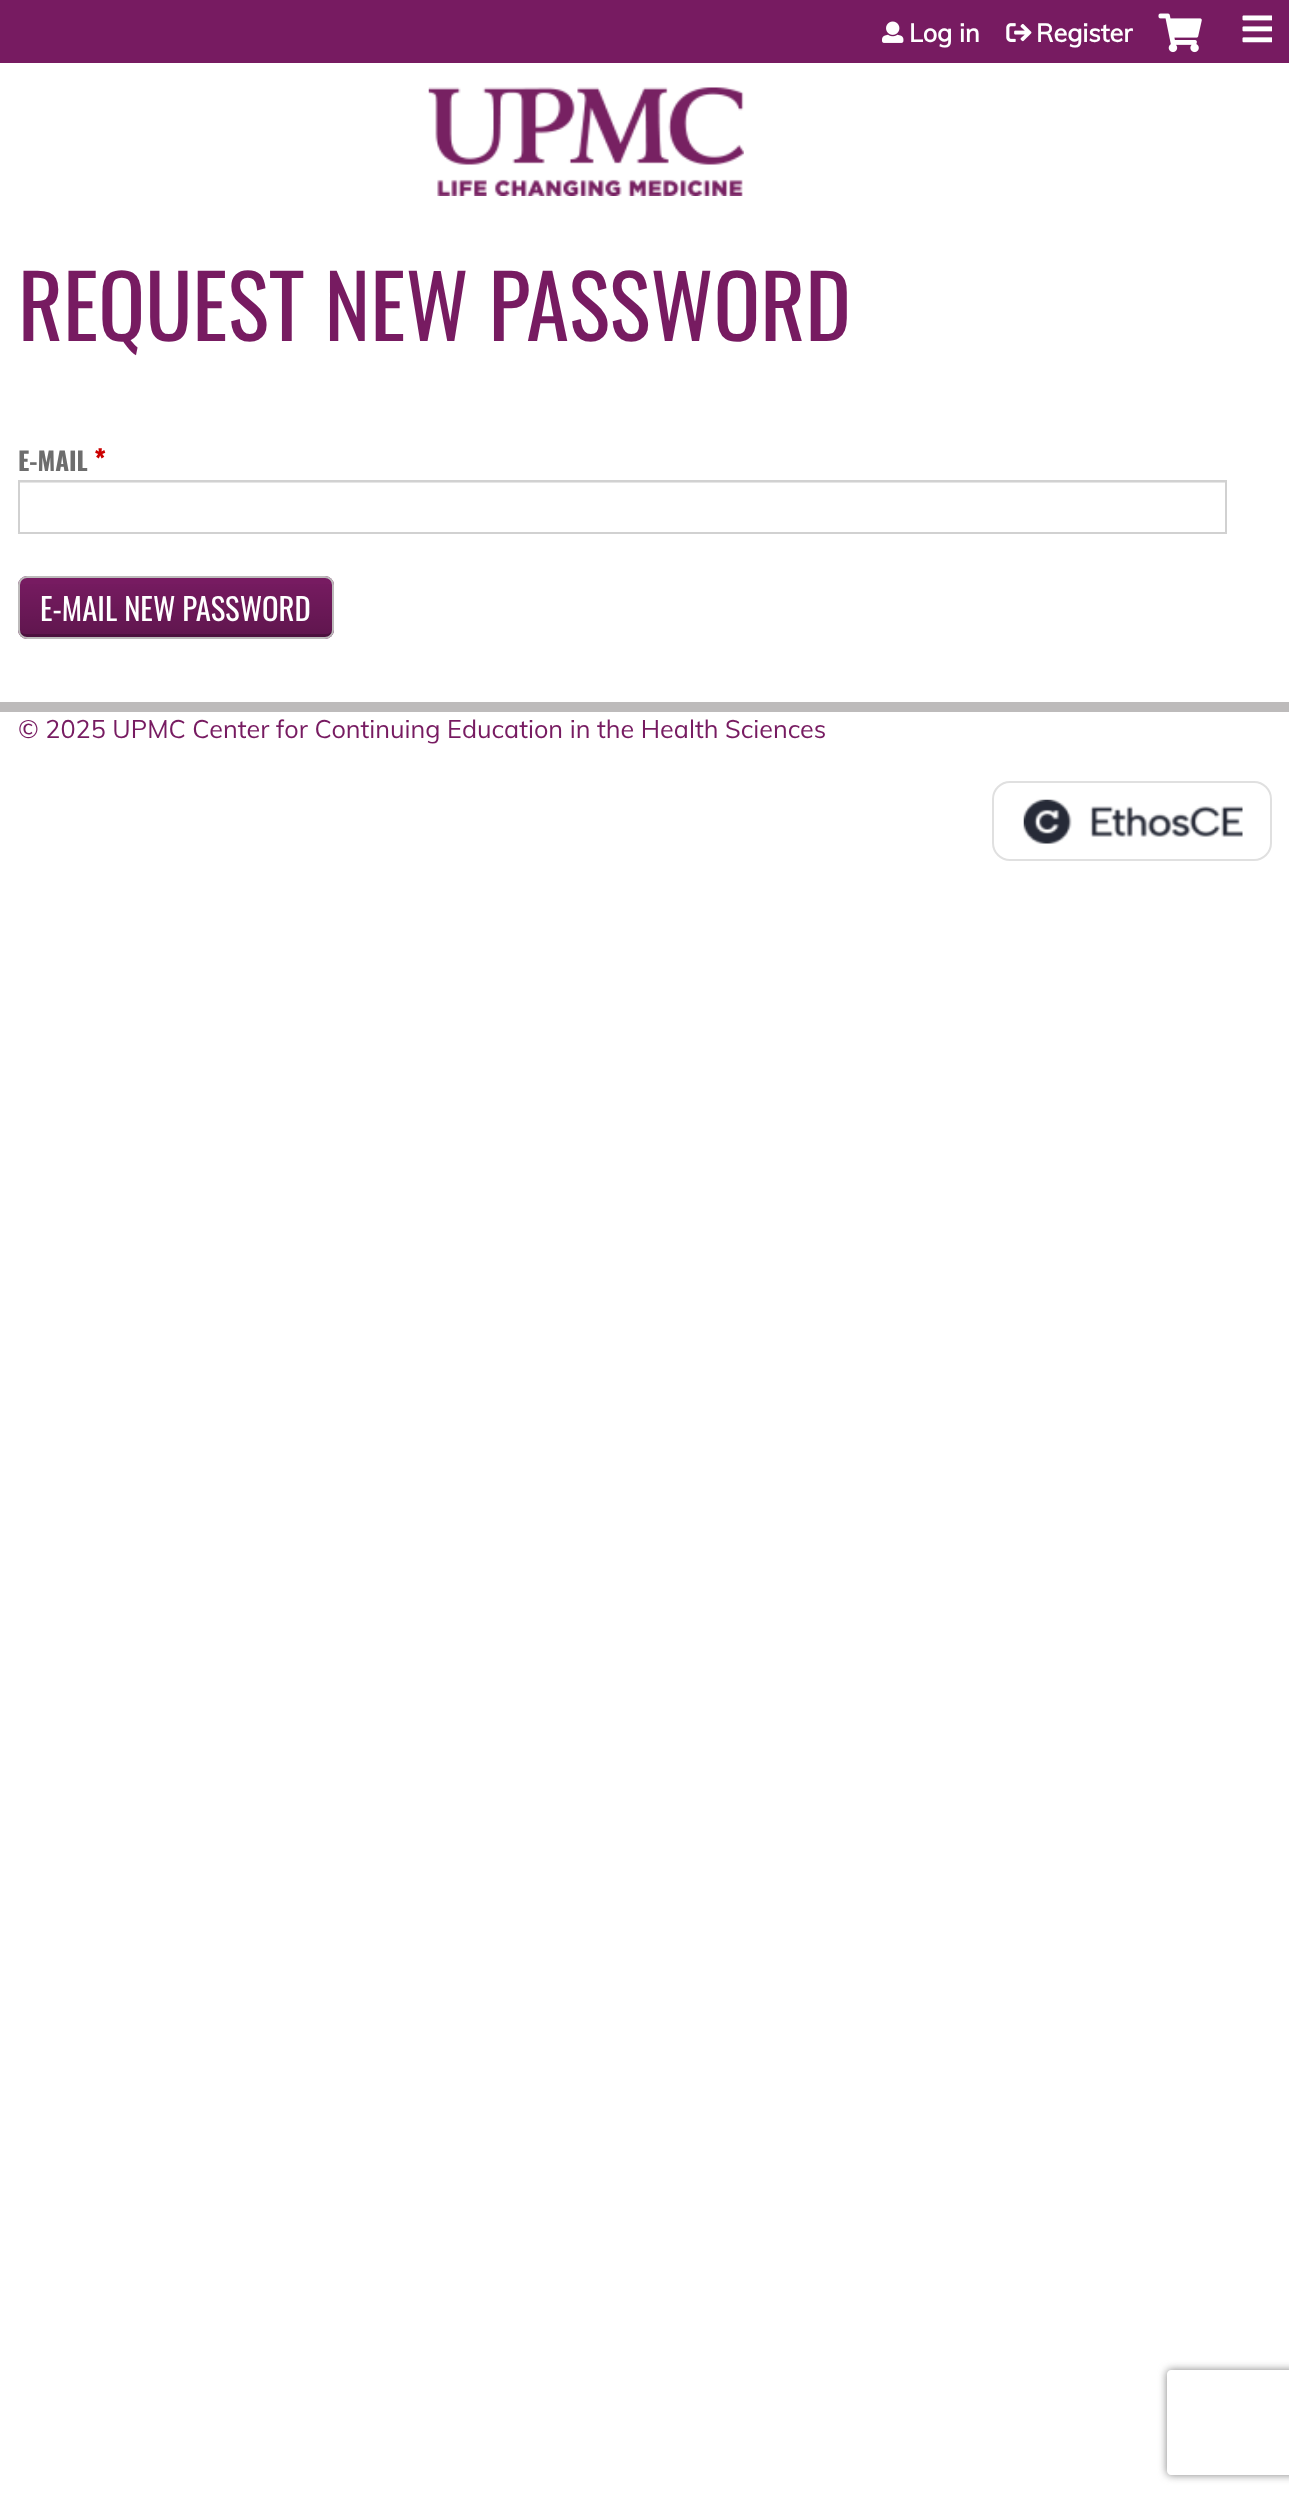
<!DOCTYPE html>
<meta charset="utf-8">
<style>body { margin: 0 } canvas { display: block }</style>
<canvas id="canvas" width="1289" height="2499"></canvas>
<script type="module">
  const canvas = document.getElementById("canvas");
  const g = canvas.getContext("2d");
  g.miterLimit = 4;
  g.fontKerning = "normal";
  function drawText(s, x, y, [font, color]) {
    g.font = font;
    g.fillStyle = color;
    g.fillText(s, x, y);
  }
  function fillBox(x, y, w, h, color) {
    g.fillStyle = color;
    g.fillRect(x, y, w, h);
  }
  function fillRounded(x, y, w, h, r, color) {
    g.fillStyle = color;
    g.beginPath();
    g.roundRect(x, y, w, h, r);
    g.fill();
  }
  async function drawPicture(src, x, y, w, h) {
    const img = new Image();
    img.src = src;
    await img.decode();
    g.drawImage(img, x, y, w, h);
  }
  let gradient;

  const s1 = ["bold 25.2px Muli", "#FFFFFF"];
  const s2 = ["86.75px Oswald", "#771B61"];
  const s3 = ["bold 25.2px Oswald", "#6D6D6D"];
  const s4 = ["bold 28px Oswald", "#CC0000"];
  const s5 = ["30.75px Oswald", "#FFFFFF"];
  const s6 = ["25.2px Muli", "#771B61"];

  fillBox(0, 0, 1289, 2499, "#FFFFFF");
  fillBox(0, 0, 1289, 63, "#771B61");
  await drawPicture("pic1.png", 882, 21, 22, 22);
  drawText("Log in", 909, 42, s1);
  await drawPicture("pic2.png", 1006, 23, 26, 19);
  drawText("Register", 1036, 42, s1);
  await drawPicture("pic3.png", 1158, 13, 44, 40);
  await drawPicture("pic4.png", 1242, 15, 30, 28);
  await drawPicture("pic5.png", 428, 87, 316, 109);
  drawText("REQUEST NEW PASSWORD", 18, 341, s2);
  drawText("E-MAIL", 18, 471, s3);
  drawText("*", 94, 471, s4);
  fillBox(19, 482, 1206, 1, "#E6E6E6");
  g.strokeStyle = "#D1D1D1";
  g.lineWidth = 2;
  g.strokeRect(19, 481, 1207, 52);
  fillRounded(18, 576, 316, 63, 9, "#771B61");
  g.save();
  g.beginPath();
  g.roundRect(18, 576, 316, 63, 9);
  g.clip();
  gradient = g.createLinearGradient(176, 637, 176, 578);
  gradient.addColorStop(0, "rgba(0, 0, 0, 0.2)");
  gradient.addColorStop(1, "rgba(0, 0, 0, 0)");
  g.fillStyle = gradient;
  g.fillRect(18, 584, 316, 53);
  g.restore();
  g.fillStyle = "rgba(0, 0, 0, 0.2)";
  g.beginPath();
  g.moveTo(19, 630);
  g.bezierCurveTo(19, 634, 22, 637, 26, 637);
  g.lineTo(326, 637);
  g.bezierCurveTo(330, 637, 333, 634, 333, 630);
  g.lineTo(333, 629);
  g.bezierCurveTo(332, 632, 329, 634, 326, 634);
  g.lineTo(26, 634);
  g.bezierCurveTo(23, 634, 20, 632, 19, 630);
  g.closePath();
  g.fill();
  g.beginPath();
  g.roundRect(19, 577, 314, 61, 8);
  g.strokeStyle = "#BDBBBB";
  g.stroke();
  drawText("E-MAIL NEW PASSWORD", 40, 621, s5);
  fillBox(0, 702, 1289, 10, "#BDBBBB");
  drawText("© 2025 UPMC Center for Continuing Education in the Health Sciences", 18, 738, s6);
  await drawPicture("pic6.png", 1023, 799, 220, 45);
  g.beginPath();
  g.roundRect(993, 782, 278, 78, 17);
  g.strokeStyle = "#E0E0E0";
  g.stroke();
  g.save();
  g.beginPath();
  g.moveTo(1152, 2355);
  g.lineTo(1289, 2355);
  g.lineTo(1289, 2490);
  g.lineTo(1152, 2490);
  g.closePath();
  g.moveTo(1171, 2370);
  g.lineTo(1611, 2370);
  g.bezierCurveTo(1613, 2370, 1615, 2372, 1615, 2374);
  g.lineTo(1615, 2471);
  g.bezierCurveTo(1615, 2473, 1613, 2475, 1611, 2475);
  g.lineTo(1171, 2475);
  g.bezierCurveTo(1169, 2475, 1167, 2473, 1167, 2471);
  g.lineTo(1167, 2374);
  g.bezierCurveTo(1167, 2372, 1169, 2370, 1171, 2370);
  g.closePath();
  g.clip("evenodd");
  g.fillStyle = "#808080";
  g.filter = "blur(4.5px)";
  g.beginPath();
  g.roundRect(1167, 2370, 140, 105, 4);
  g.fill();
  g.filter = "none";
  g.restore();
</script>
